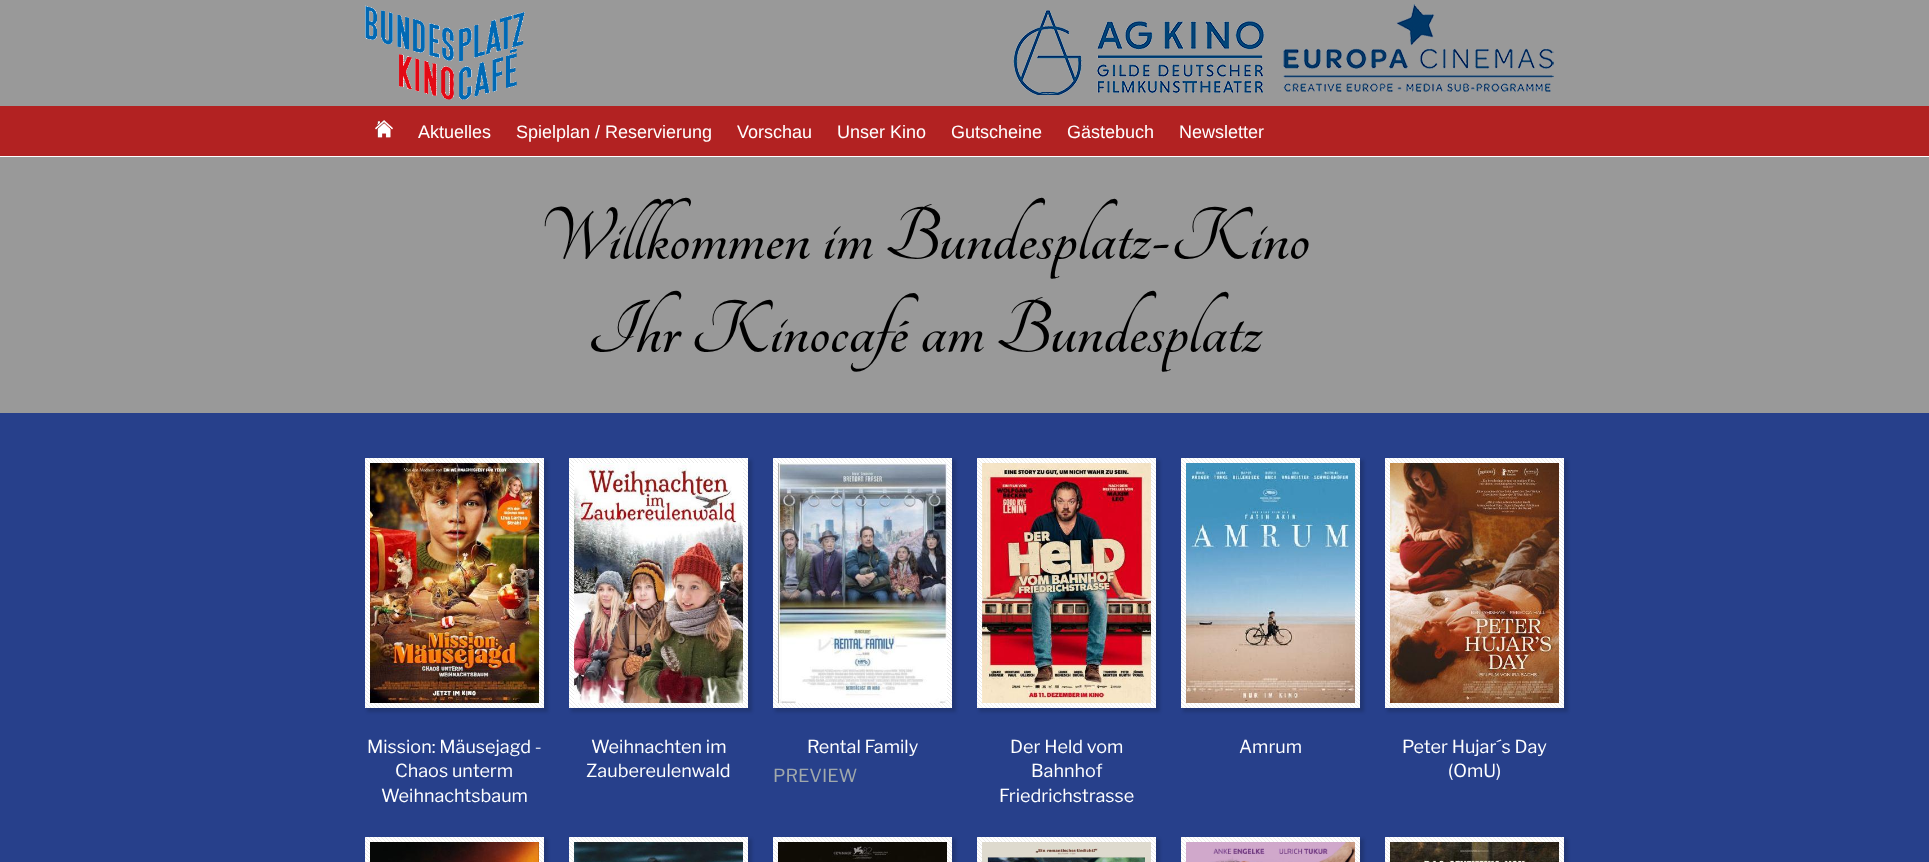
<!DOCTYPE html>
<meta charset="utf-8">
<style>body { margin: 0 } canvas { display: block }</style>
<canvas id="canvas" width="1929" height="862"></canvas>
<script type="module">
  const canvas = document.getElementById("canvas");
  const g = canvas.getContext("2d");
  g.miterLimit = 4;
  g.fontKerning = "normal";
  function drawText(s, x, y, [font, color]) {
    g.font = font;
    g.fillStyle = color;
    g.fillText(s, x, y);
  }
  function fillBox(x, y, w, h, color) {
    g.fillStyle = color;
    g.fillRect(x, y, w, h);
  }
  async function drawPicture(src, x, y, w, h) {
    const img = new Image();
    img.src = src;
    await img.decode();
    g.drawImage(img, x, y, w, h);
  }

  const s1 = ["18px Liberation Sans", "#FFFFFF"];
  const s2 = ["bold 81px Tangerine", "#000000"];
  const s3 = ["100 18px Libre Franklin", "#FFFFFF"];
  const s4 = ["100 18px Libre Franklin", "#A0A8AB"];

  fillBox(0, 0, 1929, 862, "#999999");
  await drawPicture("pic1.png", 365, 5, 160, 95);
  await drawPicture("pic2.png", 1013, 10, 252, 85);
  await drawPicture("pic3.png", 1283, 4, 271, 88);
  fillBox(0, 106, 1929, 50, "#B22222");
  await drawPicture("pic4.png", 375, 120, 18, 18);
  drawText("Aktuelles", 418, 138, s1);
  drawText("Spielplan / Reservierung", 516, 138, s1);
  drawText("Vorschau", 737, 138, s1);
  drawText("Unser Kino", 837, 138, s1);
  drawText("Gutscheine", 951, 138, s1);
  drawText("Gästebuch", 1067, 138, s1);
  drawText("Newsletter", 1179, 138, s1);
  fillBox(0, 156, 1929, 1, "#FFFFFF");
  drawText("Willkommen im Bundesplatz-Kino", 539, 259, s2);
  drawText("Ihr Kinocafé am Bundesplatz", 587, 352, s2);
  fillBox(0, 413, 1929, 449, "#27408B");
  g.fillStyle = "rgba(0, 0, 0, 0.15)";
  g.filter = "blur(1.5px)";
  g.beginPath();
  g.rect(367, 460, 181, 252);
  g.fill();
  g.filter = "none";
  fillBox(365, 458, 179, 250, "#FFFFFF");
  await drawPicture("pic5.png", 365, 458, 179, 250);
  await drawPicture("pic6.png", 370, 463, 169, 240);
  drawText("Mission: Mäusejagd -", 367, 753, s3);
  drawText("Chaos unterm", 395, 777, s3);
  drawText("Weihnachtsbaum", 381, 802, s3);
  g.fillStyle = "rgba(0, 0, 0, 0.15)";
  g.filter = "blur(1.5px)";
  g.beginPath();
  g.rect(571, 460, 181, 252);
  g.fill();
  g.filter = "none";
  fillBox(569, 458, 179, 250, "#FFFFFF");
  await drawPicture("pic5.png", 569, 458, 179, 250);
  await drawPicture("pic7.png", 574, 463, 169, 240);
  drawText("Weihnachten im", 591, 753, s3);
  drawText("Zaubereulenwald", 586, 777, s3);
  g.fillStyle = "rgba(0, 0, 0, 0.15)";
  g.filter = "blur(1.5px)";
  g.beginPath();
  g.rect(775, 460, 181, 252);
  g.fill();
  g.filter = "none";
  fillBox(773, 458, 179, 250, "#FFFFFF");
  await drawPicture("pic5.png", 773, 458, 179, 250);
  await drawPicture("pic8.png", 778, 463, 169, 240);
  drawText("Rental Family", 807, 753, s3);
  drawText("PREVIEW", 773, 782, s4);
  g.fillStyle = "rgba(0, 0, 0, 0.15)";
  g.filter = "blur(1.5px)";
  g.beginPath();
  g.rect(979, 460, 181, 252);
  g.fill();
  g.filter = "none";
  fillBox(977, 458, 179, 250, "#FFFFFF");
  await drawPicture("pic5.png", 977, 458, 179, 250);
  await drawPicture("pic9.png", 982, 463, 169, 240);
  drawText("Der Held vom", 1010, 753, s3);
  drawText("Bahnhof", 1031, 777, s3);
  drawText("Friedrichstrasse", 999, 802, s3);
  g.fillStyle = "rgba(0, 0, 0, 0.15)";
  g.filter = "blur(1.5px)";
  g.beginPath();
  g.rect(1183, 460, 181, 252);
  g.fill();
  g.filter = "none";
  fillBox(1181, 458, 179, 250, "#FFFFFF");
  await drawPicture("pic5.png", 1181, 458, 179, 250);
  await drawPicture("pic10.png", 1186, 463, 169, 240);
  drawText("Amrum", 1239, 753, s3);
  g.fillStyle = "rgba(0, 0, 0, 0.15)";
  g.filter = "blur(1.5px)";
  g.beginPath();
  g.rect(1387, 460, 181, 252);
  g.fill();
  g.filter = "none";
  fillBox(1385, 458, 179, 250, "#FFFFFF");
  await drawPicture("pic5.png", 1385, 458, 179, 250);
  await drawPicture("pic11.png", 1390, 463, 169, 240);
  drawText("Peter Hujar´s Day", 1402, 753, s3);
  drawText("(OmU)", 1448, 777, s3);
  g.fillStyle = "rgba(0, 0, 0, 0.15)";
  g.filter = "blur(1.5px)";
  g.beginPath();
  g.rect(367, 839, 181, 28);
  g.fill();
  g.filter = "none";
  fillBox(365, 837, 179, 25, "#FFFFFF");
  await drawPicture("pic12.png", 365, 837, 179, 25);
  await drawPicture("pic13.png", 370, 842, 169, 20);
  g.fillStyle = "rgba(0, 0, 0, 0.15)";
  g.filter = "blur(1.5px)";
  g.beginPath();
  g.rect(571, 839, 181, 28);
  g.fill();
  g.filter = "none";
  fillBox(569, 837, 179, 25, "#FFFFFF");
  await drawPicture("pic12.png", 569, 837, 179, 25);
  await drawPicture("pic14.png", 574, 842, 169, 20);
  g.fillStyle = "rgba(0, 0, 0, 0.15)";
  g.filter = "blur(1.5px)";
  g.beginPath();
  g.rect(775, 839, 181, 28);
  g.fill();
  g.filter = "none";
  fillBox(773, 837, 179, 25, "#FFFFFF");
  await drawPicture("pic12.png", 773, 837, 179, 25);
  await drawPicture("pic15.png", 778, 842, 169, 20);
  g.fillStyle = "rgba(0, 0, 0, 0.15)";
  g.filter = "blur(1.5px)";
  g.beginPath();
  g.rect(979, 839, 181, 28);
  g.fill();
  g.filter = "none";
  fillBox(977, 837, 179, 25, "#FFFFFF");
  await drawPicture("pic12.png", 977, 837, 179, 25);
  await drawPicture("pic16.png", 982, 842, 169, 20);
  g.fillStyle = "rgba(0, 0, 0, 0.15)";
  g.filter = "blur(1.5px)";
  g.beginPath();
  g.rect(1183, 839, 181, 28);
  g.fill();
  g.filter = "none";
  fillBox(1181, 837, 179, 25, "#FFFFFF");
  await drawPicture("pic12.png", 1181, 837, 179, 25);
  await drawPicture("pic17.png", 1186, 842, 169, 20);
  g.fillStyle = "rgba(0, 0, 0, 0.15)";
  g.filter = "blur(1.5px)";
  g.beginPath();
  g.rect(1387, 839, 181, 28);
  g.fill();
  g.filter = "none";
  fillBox(1385, 837, 179, 25, "#FFFFFF");
  await drawPicture("pic12.png", 1385, 837, 179, 25);
  await drawPicture("pic18.png", 1390, 842, 169, 20);
</script>
